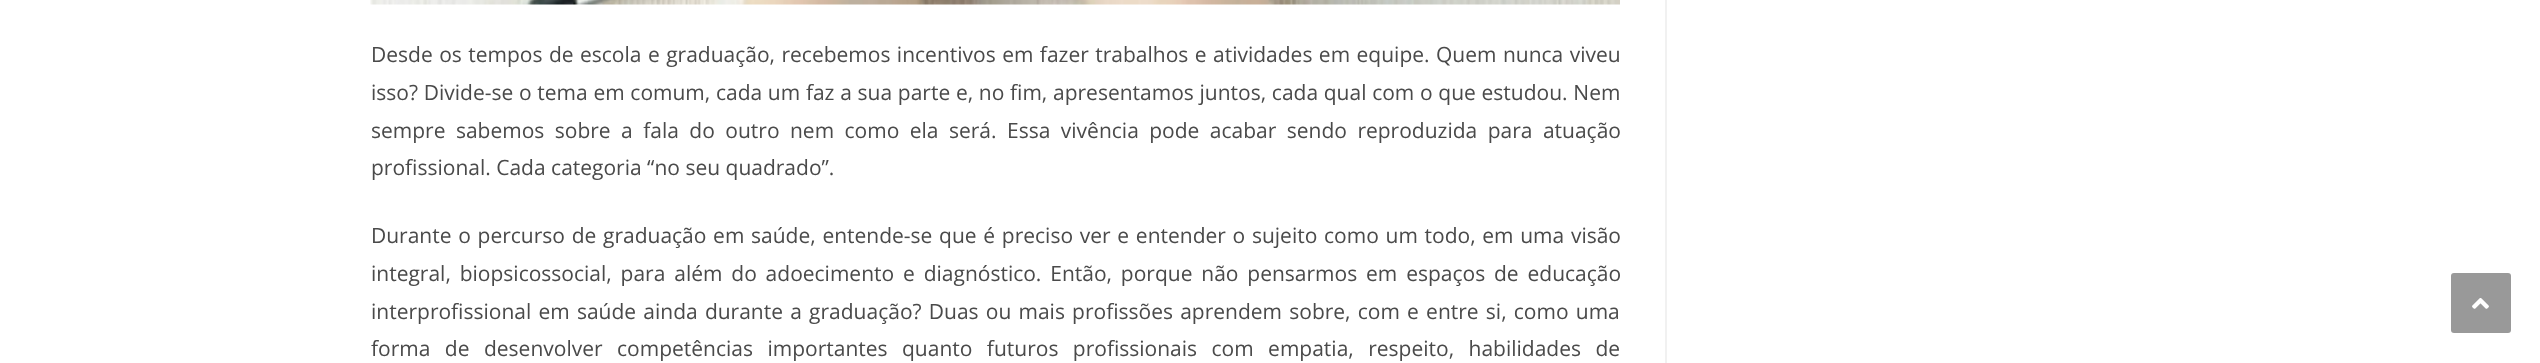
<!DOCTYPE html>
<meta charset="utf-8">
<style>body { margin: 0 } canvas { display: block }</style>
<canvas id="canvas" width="2540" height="363"></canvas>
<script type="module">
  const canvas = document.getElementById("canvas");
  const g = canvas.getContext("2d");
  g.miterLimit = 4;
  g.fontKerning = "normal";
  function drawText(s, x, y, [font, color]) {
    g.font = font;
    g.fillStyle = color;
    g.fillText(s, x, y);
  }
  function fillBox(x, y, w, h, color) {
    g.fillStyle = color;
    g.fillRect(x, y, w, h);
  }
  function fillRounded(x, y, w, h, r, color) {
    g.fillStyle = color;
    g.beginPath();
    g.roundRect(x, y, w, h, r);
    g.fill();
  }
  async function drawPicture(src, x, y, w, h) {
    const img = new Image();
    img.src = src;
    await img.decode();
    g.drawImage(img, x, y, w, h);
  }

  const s1 = ["21px Open Sans", "#4A4A4A"];

  fillBox(0, 0, 2540, 363, "#FFFFFF");
  fillBox(1665, 0, 2, 363, "#F1F1F1");
  await drawPicture("pic1.png", 370, 0, 1250, 5);
  g.wordSpacing = "1px";
  drawText("Desde os tempos de escola e graduação, recebemos incentivos em fazer trabalhos e atividades em equipe. Quem nunca viveu", 371, 62, s1);
  g.wordSpacing = "0.25px";
  drawText("isso? Divide-se o tema em comum, cada um faz a sua parte e, no fim, apresentamos juntos, cada qual com o que estudou. Nem", 371, 100, s1);
  g.wordSpacing = "5px";
  drawText("sempre sabemos sobre a fala do outro nem como ela será. Essa vivência pode acabar sendo reproduzida para atuação", 371, 138, s1);
  g.wordSpacing = "0px";
  drawText("profissional. Cada categoria “no seu quadrado”.", 371, 175, s1);
  g.wordSpacing = "1.25px";
  drawText("Durante o percurso de graduação em saúde, entende-se que é preciso ver e entender o sujeito como um todo, em uma visão", 371, 243, s1);
  g.wordSpacing = "3.4px";
  drawText("integral, biopsicossocial, para além do adoecimento e diagnóstico. Então, porque não pensarmos em espaços de educação", 371, 281, s1);
  g.wordSpacing = "1.75px";
  drawText("interprofissional em saúde ainda durante a graduação? Duas ou mais profissões aprendem sobre, com e entre si, como uma", 371, 319, s1);
  g.wordSpacing = "9px";
  drawText("forma de desenvolver competências importantes quanto futuros profissionais com empatia, respeito, habilidades de", 371, 356, s1);
  fillRounded(2451, 273, 60, 60, 3, "#999999");
  await drawPicture("pic2.png", 2472, 298, 17, 11);
</script>
